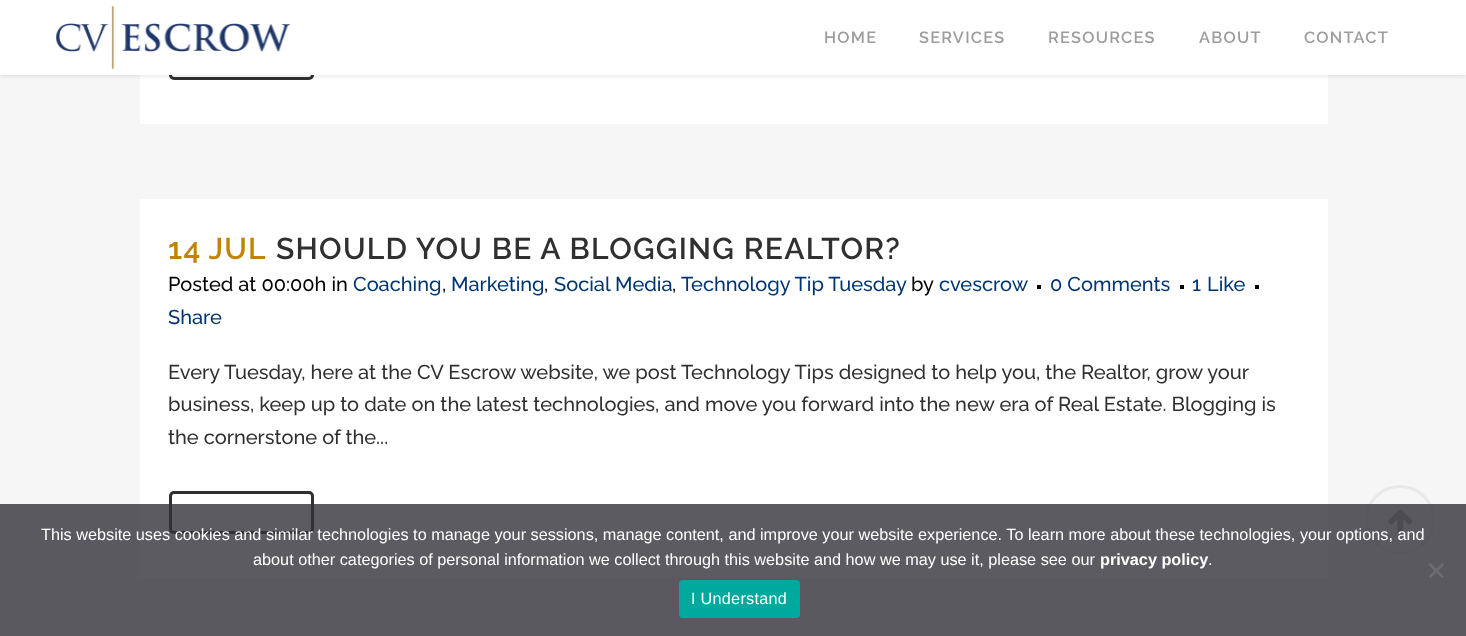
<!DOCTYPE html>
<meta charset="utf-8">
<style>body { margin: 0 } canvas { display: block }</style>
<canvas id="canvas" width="1466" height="636"></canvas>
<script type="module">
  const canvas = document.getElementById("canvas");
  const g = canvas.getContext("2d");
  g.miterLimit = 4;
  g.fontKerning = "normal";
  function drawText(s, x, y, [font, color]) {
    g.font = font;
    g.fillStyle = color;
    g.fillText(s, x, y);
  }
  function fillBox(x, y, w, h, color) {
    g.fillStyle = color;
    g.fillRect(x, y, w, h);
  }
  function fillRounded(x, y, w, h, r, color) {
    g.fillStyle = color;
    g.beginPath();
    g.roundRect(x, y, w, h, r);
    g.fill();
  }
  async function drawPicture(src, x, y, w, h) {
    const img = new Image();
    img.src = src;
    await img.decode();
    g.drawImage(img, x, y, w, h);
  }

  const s1 = ["600 16.25px Raleway", "#9D9D9D"];
  const s2 = ["600 30px Raleway", "#C18400"];
  const s3 = ["600 30px Raleway", "#303030"];
  const s4 = ["500 20px Raleway", "#000000"];
  const s5 = ["500 20px Raleway", "#003572"];
  const s6 = ["500 20px Raleway", "#303030"];
  const s7 = ["16.25px Liberation Sans", "#FFFFFF"];
  const s8 = ["bold 16.25px Liberation Sans", "#FFFFFF"];

  fillBox(0, 0, 1466, 636, "#F6F6F6");
  fillBox(140, 75, 1188, 49, "#FFFFFF");
  g.beginPath();
  g.roundRect(170.5, 39.5, 142, 39, 3.5);
  g.strokeStyle = "#303030";
  g.lineWidth = 3;
  g.stroke();
  g.fillStyle = "rgba(0, 0, 0, 0.11)";
  g.filter = "blur(2px)";
  g.beginPath();
  g.rect(0, 1, 1466, 75);
  g.fill();
  g.filter = "none";
  fillBox(0, 0, 1466, 75, "#FFFFFF");
  await drawPicture("pic1.png", 56, 6, 234, 63);
  g.letterSpacing = "1.25px";
  drawText("HOME", 824, 43, s1);
  drawText("SERVICES", 919, 43, s1);
  drawText("RESOURCES", 1048, 43, s1);
  drawText("ABOUT", 1199, 43, s1);
  drawText("CONTACT", 1304, 43, s1);
  fillBox(140, 199, 1188, 379, "#FFFFFF");
  g.wordSpacing = "-1px";
  drawText("14 JUL", 168, 259, s2);
  g.wordSpacing = "0px";
  drawText("SHOULD YOU BE A BLOGGING REALTOR?", 276, 259, s3);
  g.letterSpacing = "0px";
  drawText("Posted at 00:00h in", 168, 291, s4);
  drawText("Coaching", 353, 291, s5);
  drawText("Marketing", 451, 291, s5);
  drawText("Social Media", 554, 291, s5);
  drawText("Technology Tip Tuesday", 681, 291, s5);
  drawText("by", 911, 291, s4);
  drawText("cvescrow", 939, 291, s5);
  fillBox(1037, 285, 4, 4, "#000000");
  drawText("0 Comments", 1050, 291, s5);
  fillBox(1180, 285, 4, 4, "#000000");
  drawText("1", 1192, 291, s5);
  drawText("Like", 1207, 291, s5);
  fillBox(1255, 285, 4, 4, "#000000");
  drawText(",", 442, 291, s4);
  drawText(",", 544, 291, s4);
  drawText(",", 672, 291, s4);
  drawText("Share", 168, 324, s5);
  drawText("Every Tuesday, here at the CV Escrow website, we post Technology Tips designed to help you, the Realtor, grow your", 168, 379, s6);
  drawText("business, keep up to date on the latest technologies, and move you forward into the new era of Real Estate. Blogging is", 168, 411, s6);
  drawText("the cornerstone of the...", 168, 444, s6);
  g.beginPath();
  g.roundRect(170.5, 492.5, 142, 40, 3.5);
  g.stroke();
  g.beginPath();
  g.arc(1400, 520, 33.5, 0, Math.PI * 2);
  g.strokeStyle = "#E8E8E8";
  g.stroke();
  await drawPicture("pic2.png", 1388, 509, 25, 23);
  fillBox(0, 504, 1466, 132, "rgba(50, 50, 58, 0.8)");
  drawText("This website uses cookies and similar technologies to manage your sessions, manage content, and improve your website experience. To learn more about these technologies, your options, and", 41, 540, s7);
  drawText("about other categories of personal information we collect through this website and how we may use it, please see our", 253, 565, s7);
  drawText("privacy policy", 1100, 565, s8);
  drawText(".", 1208, 565, s7);
  g.fillStyle = "#6D6D70";
  g.beginPath();
  g.moveTo(1442, 563);
  g.lineTo(1444, 565);
  g.lineTo(1430.5, 578);
  g.lineTo(1428.5, 576.5);
  g.closePath();
  g.fill();
  g.beginPath();
  g.moveTo(1428.5, 565);
  g.lineTo(1430.5, 563);
  g.lineTo(1444, 576.5);
  g.lineTo(1442, 578);
  g.closePath();
  g.fill();
  fillRounded(679, 580, 121, 38, 4, "#00A99D");
  g.letterSpacing = "0.25px";
  drawText("I Understand", 691, 604, s7);
</script>
